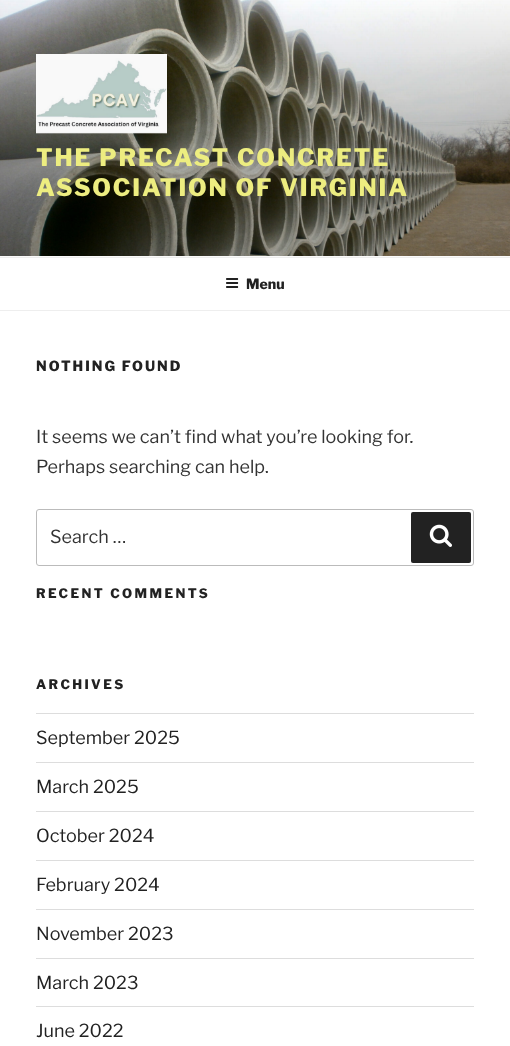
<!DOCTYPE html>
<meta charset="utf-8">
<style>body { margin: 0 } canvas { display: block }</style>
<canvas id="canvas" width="510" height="1046"></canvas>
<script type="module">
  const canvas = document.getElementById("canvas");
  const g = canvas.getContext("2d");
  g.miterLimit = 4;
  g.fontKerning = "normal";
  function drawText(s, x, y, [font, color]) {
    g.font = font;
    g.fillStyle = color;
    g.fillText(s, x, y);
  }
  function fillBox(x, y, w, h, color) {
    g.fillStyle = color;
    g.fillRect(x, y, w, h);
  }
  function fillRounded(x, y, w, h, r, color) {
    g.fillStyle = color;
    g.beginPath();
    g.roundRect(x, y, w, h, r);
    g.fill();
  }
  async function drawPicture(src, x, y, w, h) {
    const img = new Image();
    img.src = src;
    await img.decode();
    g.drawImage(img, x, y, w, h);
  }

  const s1 = ["100 24px Libre Franklin", "#EDED80"];
  const s2 = ["100 14px Libre Franklin", "#222222"];
  const s3 = ["100 18px 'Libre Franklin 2'", "#333333"];
  const s4 = ["100 13px Libre Franklin", "#222222"];
  const s5 = ["100 18px 'Libre Franklin 2'", "#222222"];

  fillBox(0, 0, 510, 1046, "#FFFFFF");
  fillBox(0, 256, 510, 1, "#FAFAFA");
  await drawPicture("pic1.png", 0, 0, 510, 256);
  await drawPicture("pic2.png", 36, 54, 131, 80);
  g.letterSpacing = "1.9px";
  drawText("THE PRECAST CONCRETE", 36, 166, s1);
  drawText("ASSOCIATION OF VIRGINIA", 36, 196, s1);
  fillBox(0, 257, 510, 1, "#EEEEEE");
  fillBox(0, 310, 510, 1, "#EEEEEE");
  await drawPicture("pic3.png", 226, 278, 13, 10);
  g.letterSpacing = "0px";
  drawText("Menu", 246, 289, s2);
  g.letterSpacing = "2px";
  drawText("NOTHING FOUND", 36, 371, s2);
  g.letterSpacing = "0px";
  drawText("It seems we can’t find what you’re looking for.", 36, 443, s3);
  drawText("Perhaps searching can help.", 36, 473, s3);
  g.beginPath();
  g.roundRect(36.5, 509.5, 437, 56, 2.5);
  g.strokeStyle = "#BBBBBB";
  g.stroke();
  drawText("Search …", 50, 543, s3);
  fillRounded(411, 512, 60, 51, 2, "#222222");
  await drawPicture("pic4.png", 429, 524, 23, 23);
  g.letterSpacing = "2.4px";
  drawText("RECENT COMMENTS", 36, 598, s4);
  drawText("ARCHIVES", 36, 689, s4);
  fillBox(36, 713, 438, 1, "#DDDDDD");
  fillBox(36, 762, 438, 1, "#DDDDDD");
  g.letterSpacing = "0px";
  drawText("September 2025", 36, 744, s5);
  fillBox(36, 811, 438, 1, "#DDDDDD");
  drawText("March 2025", 36, 793, s5);
  fillBox(36, 860, 438, 1, "#DDDDDD");
  drawText("October 2024", 36, 842, s5);
  fillBox(36, 909, 438, 1, "#DDDDDD");
  drawText("February 2024", 36, 891, s5);
  fillBox(36, 958, 438, 1, "#DDDDDD");
  drawText("November 2023", 36, 940, s5);
  fillBox(36, 1006, 438, 1, "#DDDDDD");
  drawText("March 2023", 36, 989, s5);
  drawText("June 2022", 36, 1037, s5);
</script>
